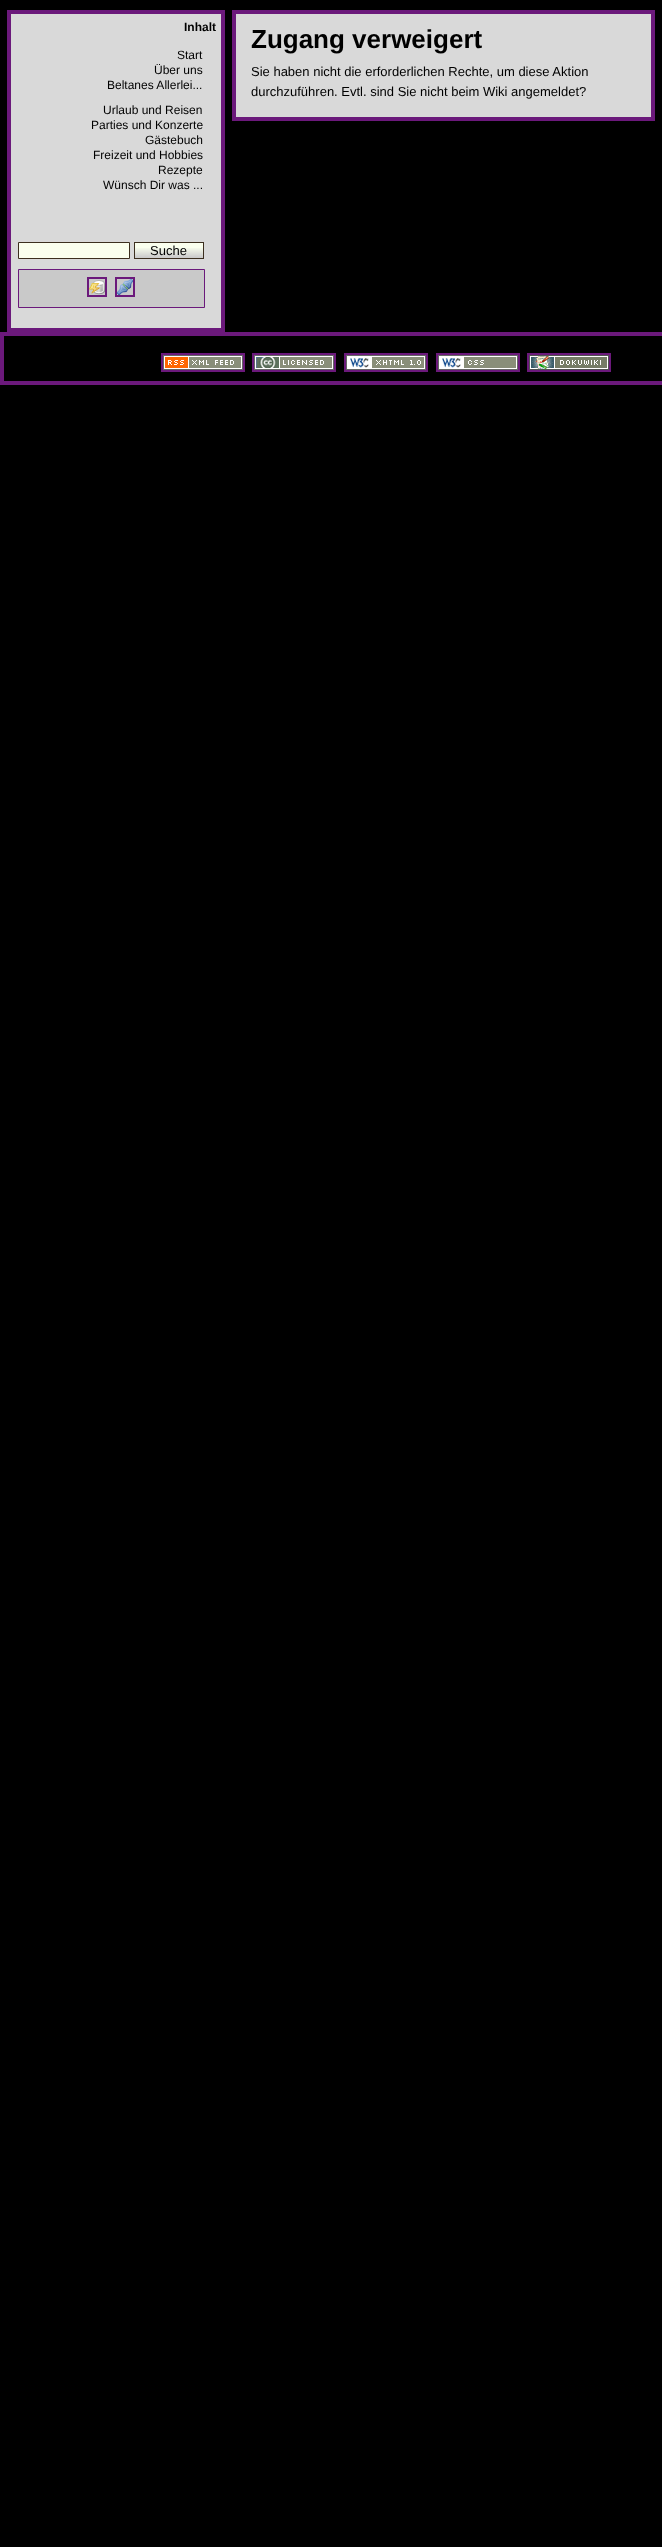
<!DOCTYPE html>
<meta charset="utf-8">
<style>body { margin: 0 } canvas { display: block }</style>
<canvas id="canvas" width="662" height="2547"></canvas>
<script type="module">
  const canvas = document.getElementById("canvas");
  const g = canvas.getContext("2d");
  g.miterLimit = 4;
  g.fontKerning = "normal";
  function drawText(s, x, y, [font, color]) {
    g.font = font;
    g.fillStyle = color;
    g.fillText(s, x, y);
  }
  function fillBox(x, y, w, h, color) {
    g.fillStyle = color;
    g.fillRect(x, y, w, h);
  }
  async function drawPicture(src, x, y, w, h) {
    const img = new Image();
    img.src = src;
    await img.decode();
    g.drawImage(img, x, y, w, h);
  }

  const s1 = ["bold 12px Liberation Sans", "#000000"];
  const s2 = ["12px Liberation Sans", "#000000"];
  const s3 = ["13px Liberation Sans", "#000000"];
  const s4 = ["bold 26px Liberation Sans", "#000000"];

  fillBox(0, 0, 662, 2547, "#000000");
  g.fillStyle = "#D9D9D9";
  g.beginPath();
  g.rect(9, 12, 214, 318);
  g.fill();
  g.strokeStyle = "#6B197B";
  g.lineWidth = 4;
  g.stroke();
  drawText("Inhalt", 184, 31, s1);
  drawText("Start", 177, 59, s2);
  drawText("Über uns", 154, 74, s2);
  drawText("Beltanes Allerlei...", 107, 89, s2);
  drawText("Urlaub und Reisen", 103, 114, s2);
  drawText("Parties und Konzerte", 91, 129, s2);
  drawText("Gästebuch", 145, 144, s2);
  drawText("Freizeit und Hobbies", 93, 159, s2);
  drawText("Rezepte", 158, 174, s2);
  drawText("Wünsch Dir was ...", 103, 189, s2);
  g.fillStyle = "#FAFFEE";
  g.beginPath();
  g.rect(18.5, 242.5, 111, 16);
  g.fill();
  g.strokeStyle = "#3C2F1F";
  g.lineWidth = 1;
  g.stroke();
  fillBox(135, 243, 68, 14, "#FAFFEE");
  await drawPicture("pic1.png", 135, 248, 68, 10);
  g.strokeRect(134.5, 242.5, 69, 16);
  drawText("Suche", 150, 255, s3);
  g.fillStyle = "#C9C9C9";
  g.beginPath();
  g.rect(18.5, 269.5, 186, 38);
  g.fill();
  g.strokeStyle = "#6B197B";
  g.stroke();
  g.lineWidth = 2;
  g.strokeRect(88, 278, 18, 18);
  g.strokeRect(116, 278, 18, 18);
  await drawPicture("pic2.png", 89, 280, 16, 15);
  await drawPicture("pic3.png", 117, 279, 16, 16);
  g.fillStyle = "#D9D9D9";
  g.beginPath();
  g.rect(234, 12, 419, 107);
  g.fill();
  g.lineWidth = 4;
  g.stroke();
  drawText("Zugang verweigert", 251, 48, s4);
  drawText("Sie haben nicht die erforderlichen Rechte, um diese Aktion", 251, 76, s3);
  drawText("durchzuführen. Evtl. sind Sie nicht beim Wiki angemeldet?", 251, 96, s3);
  g.strokeRect(2, 334, 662, 49);
  g.lineWidth = 2;
  g.strokeRect(162, 354, 82, 17);
  g.strokeRect(253, 354, 82, 17);
  g.strokeRect(345, 354, 82, 17);
  g.strokeRect(437, 354, 82, 17);
  g.strokeRect(528, 354, 82, 17);
  await drawPicture("pic4.png", 163, 355, 80, 15);
  await drawPicture("pic5.png", 254, 355, 80, 15);
  await drawPicture("pic6.png", 346, 355, 80, 15);
  await drawPicture("pic7.png", 438, 355, 80, 15);
  await drawPicture("pic8.png", 529, 355, 80, 15);
</script>
